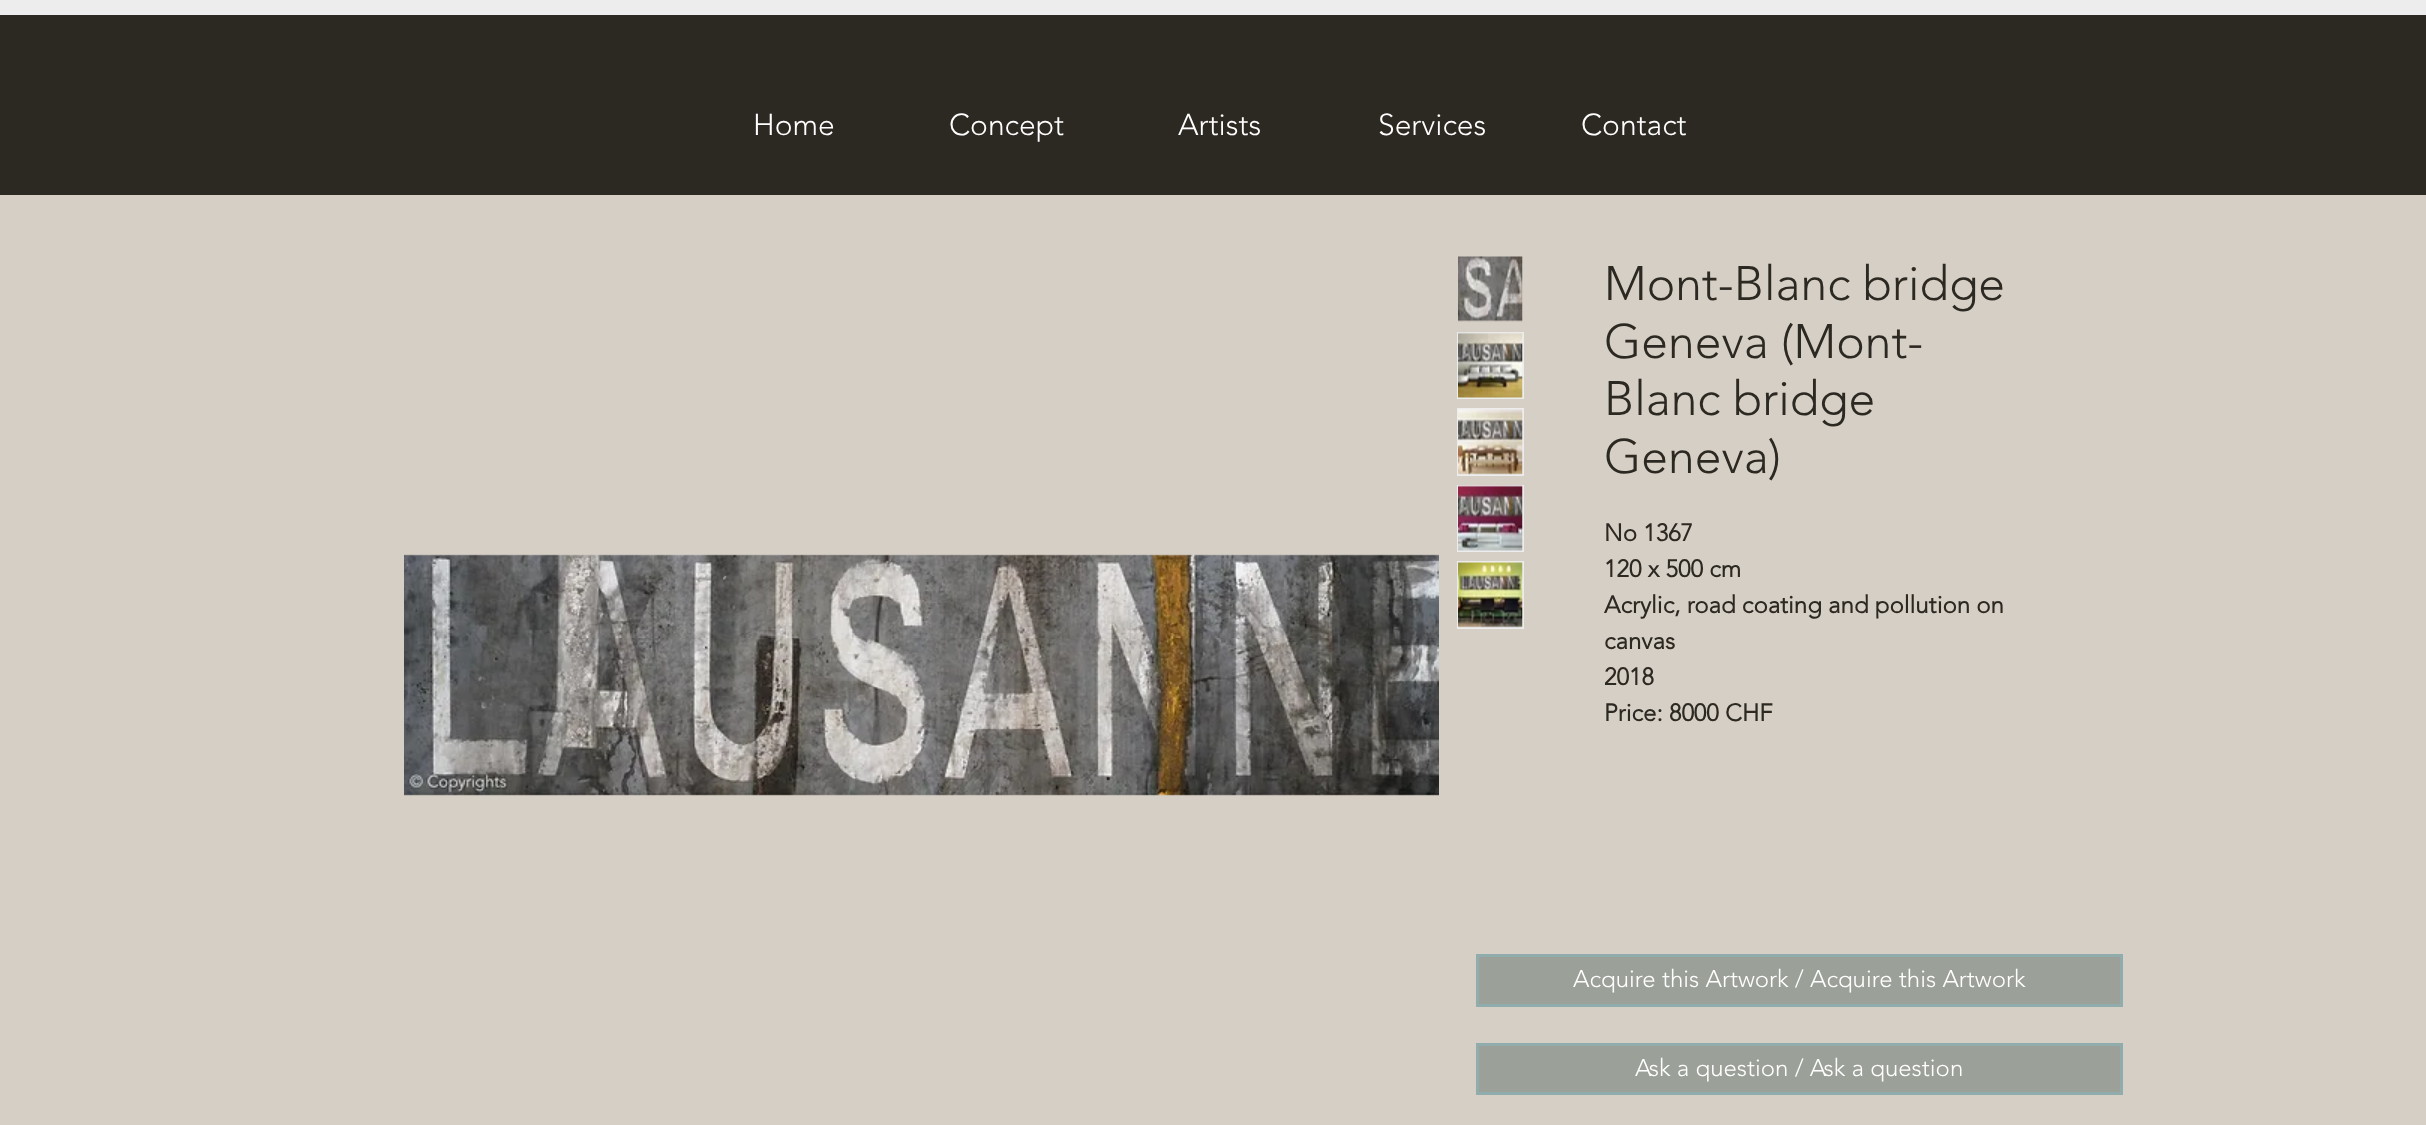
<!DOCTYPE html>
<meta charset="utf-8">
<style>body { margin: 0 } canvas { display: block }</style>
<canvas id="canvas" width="2426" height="1125"></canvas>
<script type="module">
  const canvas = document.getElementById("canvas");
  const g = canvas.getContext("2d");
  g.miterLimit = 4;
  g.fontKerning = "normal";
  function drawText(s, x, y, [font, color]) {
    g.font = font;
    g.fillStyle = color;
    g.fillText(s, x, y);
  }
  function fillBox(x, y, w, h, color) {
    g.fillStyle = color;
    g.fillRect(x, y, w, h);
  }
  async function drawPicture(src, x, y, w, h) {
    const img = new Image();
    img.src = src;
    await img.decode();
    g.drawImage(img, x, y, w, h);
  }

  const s1 = ["300 30px 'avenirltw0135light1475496'", "#FFFFFF"];
  const s2 = ["300 48px 'avenirltw0135light1475496'", "#2C2822"];
  const s3 = ["bold 24px 'avenirltw0135light1475496'", "#2C2822"];
  const s4 = ["300 24px 'avenirltw0135light1475496'", "#FFFFFF"];

  fillBox(0, 0, 2426, 1125, "#2C2822");
  fillBox(0, 0, 2426, 15, "#EDEDEE");
  drawText("Home", 753, 135, s1);
  drawText("Concept", 949, 135, s1);
  drawText("Artists", 1178, 135, s1);
  drawText("Services", 1378, 135, s1);
  drawText("Contact", 1581, 135, s1);
  fillBox(0, 195, 2426, 930, "#D6CFC5");
  await drawPicture("pic1.png", 1458, 256, 65, 66);
  g.strokeStyle = "#EDEDEE";
  g.lineWidth = 2;
  g.strokeRect(1458, 333, 65, 65);
  await drawPicture("pic2.png", 1458, 332, 65, 66);
  g.strokeRect(1458, 409, 65, 66);
  await drawPicture("pic3.png", 1458, 409, 65, 66);
  g.strokeRect(1458, 486, 65, 65);
  await drawPicture("pic4.png", 1458, 485, 65, 66);
  g.strokeRect(1458, 562, 65, 66);
  await drawPicture("pic5.png", 1458, 562, 65, 66);
  await drawPicture("pic6.png", 404, 554, 1035, 242);
  drawText("Mont-Blanc bridge", 1604, 300, s2);
  drawText("Geneva (Mont-", 1604, 358, s2);
  drawText("Blanc bridge", 1604, 415, s2);
  drawText("Geneva)", 1604, 473, s2);
  drawText("No 1367", 1604, 541, s3);
  drawText("120 x 500 cm", 1604, 577, s3);
  drawText("Acrylic, road coating and pollution on", 1604, 613, s3);
  drawText("canvas", 1604, 649, s3);
  drawText("2018", 1604, 685, s3);
  drawText("Price: 8000 CHF", 1604, 721, s3);
  g.fillStyle = "#9BA099";
  g.beginPath();
  g.rect(1477.5, 955.5, 644, 50);
  g.fill();
  g.strokeStyle = "#91ACAD";
  g.lineWidth = 3;
  g.stroke();
  drawText("Acquire this Artwork / Acquire this Artwork", 1573, 987, s4);
  g.fillStyle = "#9BA099";
  g.beginPath();
  g.rect(1477.5, 1044.5, 644, 49);
  g.fill();
  g.stroke();
  drawText("Ask a question / Ask a question", 1635, 1076, s4);
</script>
